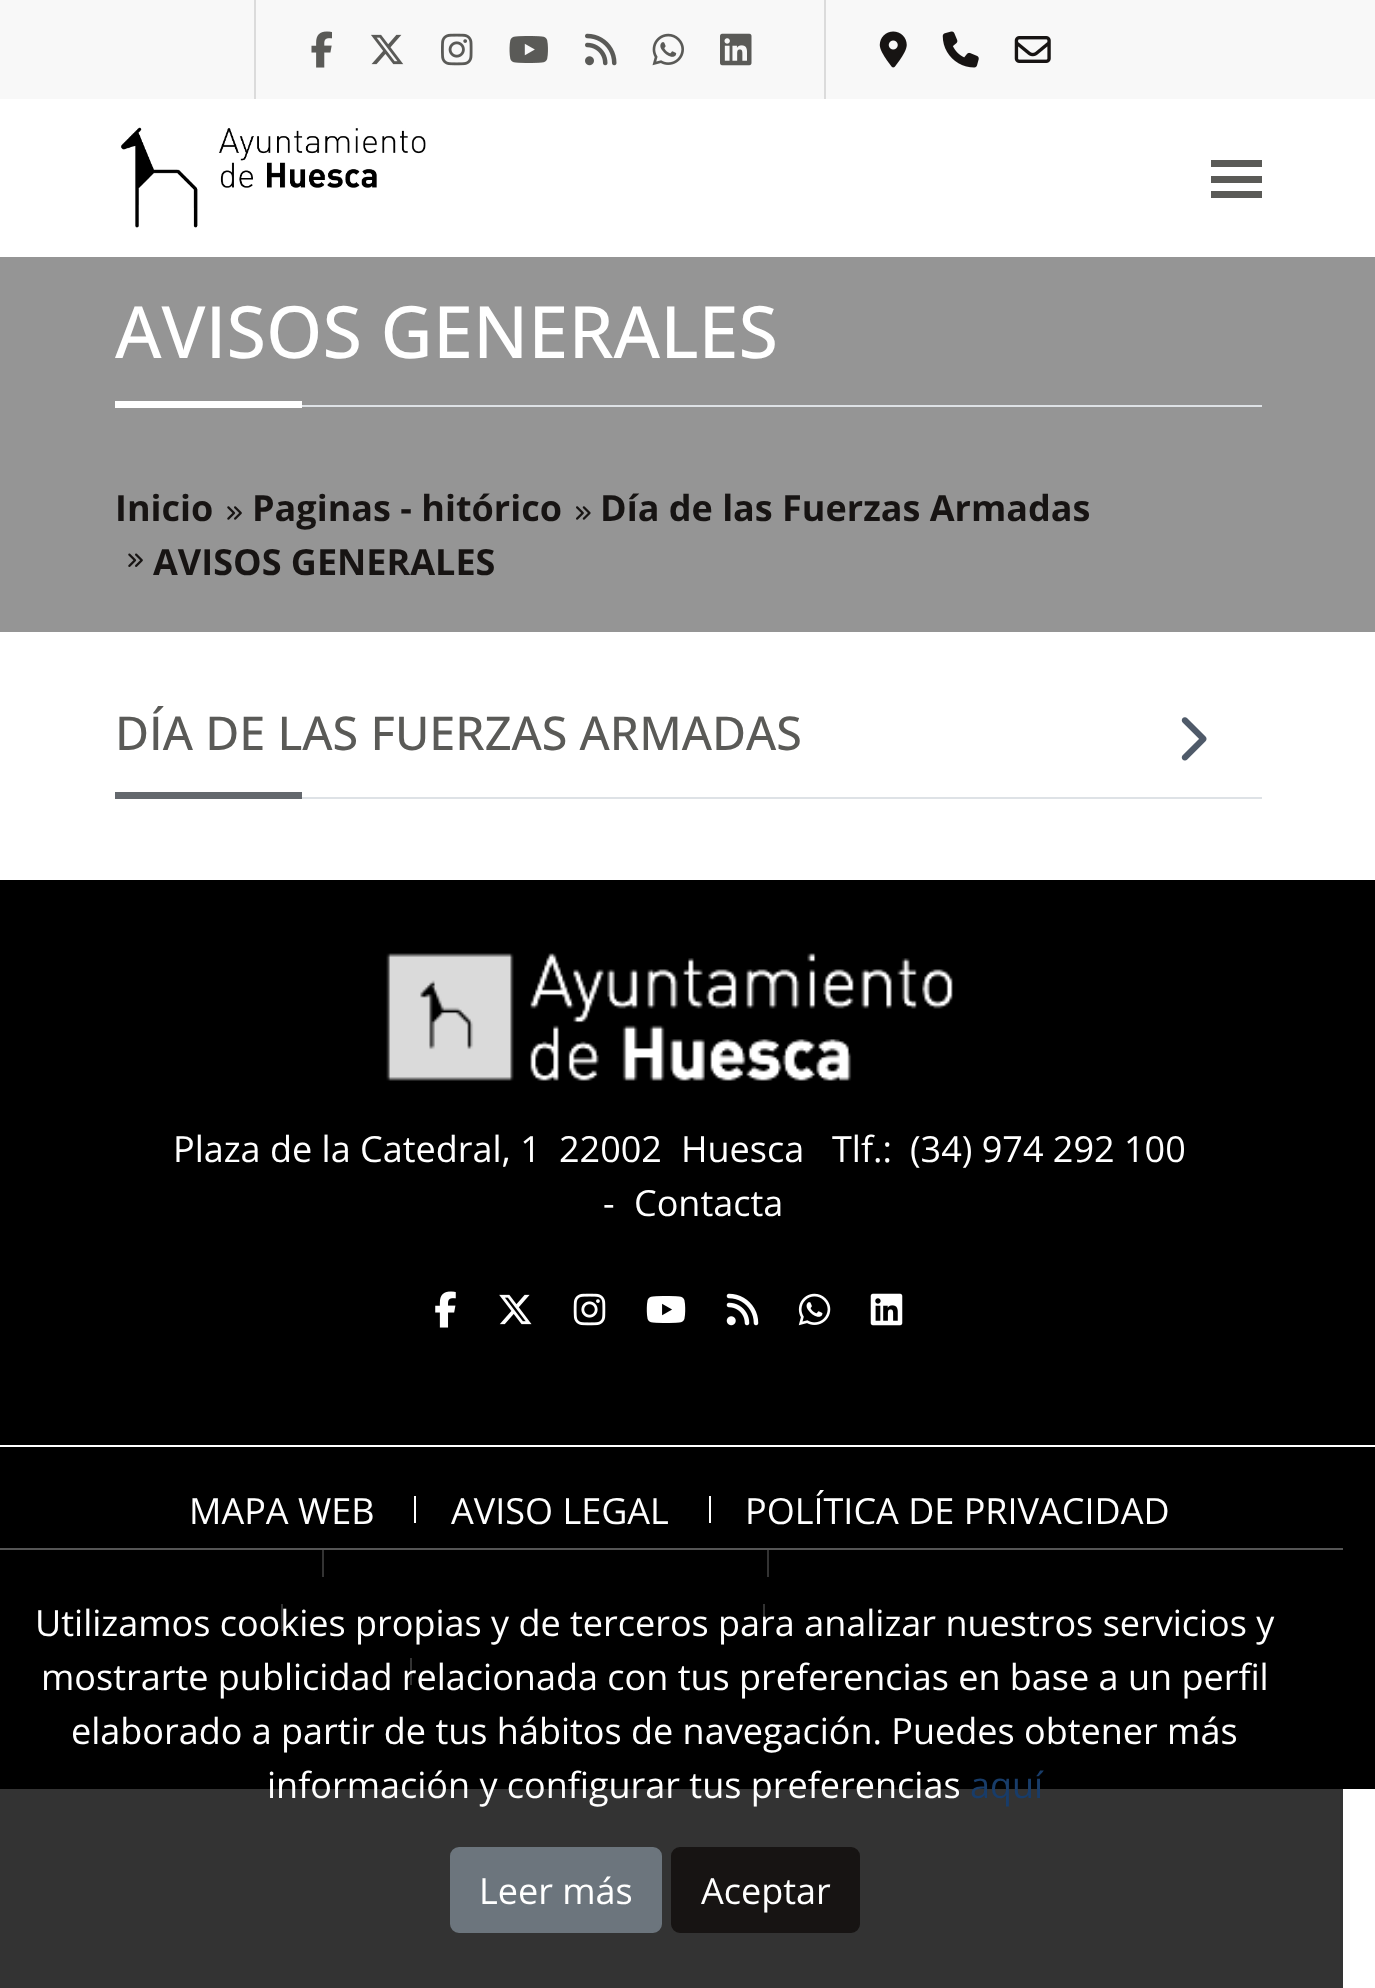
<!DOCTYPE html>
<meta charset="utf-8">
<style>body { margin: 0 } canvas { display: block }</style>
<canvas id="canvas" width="1375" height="1988"></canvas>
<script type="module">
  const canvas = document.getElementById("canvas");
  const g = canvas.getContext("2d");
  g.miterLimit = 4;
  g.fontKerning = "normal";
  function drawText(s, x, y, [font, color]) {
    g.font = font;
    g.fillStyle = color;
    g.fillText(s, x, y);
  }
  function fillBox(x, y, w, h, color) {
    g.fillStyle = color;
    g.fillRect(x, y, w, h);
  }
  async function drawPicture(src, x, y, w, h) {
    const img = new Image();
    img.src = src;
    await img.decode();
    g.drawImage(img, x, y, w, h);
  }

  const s1 = ["500 72px Open Sans", "#FFFFFF"];
  const s2 = ["bold 36px Open Sans", "#171413"];
  const s3 = ["500 46.75px Open Sans", "#5A5A57"];
  const s4 = ["36px Open Sans", "#FFFFFF"];
  const s5 = ["36px Open Sans", "#183C69"];

  fillBox(0, 0, 1375, 1988, "#FFFFFF");
  fillBox(0, 0, 1375, 99, "#F8F8F8");
  fillBox(254, 0, 2, 99, "#DBDBDB");
  await drawPicture("pic1.png", 311, 31, 21, 37);
  await drawPicture("pic2.png", 371, 34, 33, 31);
  await drawPicture("pic3.png", 441, 33, 32, 33);
  await drawPicture("pic4.png", 509, 36, 39, 27);
  await drawPicture("pic5.png", 585, 33, 32, 33);
  await drawPicture("pic6.png", 652, 33, 32, 33);
  await drawPicture("pic7.png", 720, 33, 32, 33);
  fillBox(824, 0, 2, 99, "#DBDBDB");
  await drawPicture("pic8.png", 879, 31, 28, 37);
  await drawPicture("pic9.png", 942, 31, 37, 37);
  await drawPicture("pic10.png", 1014, 36, 37, 27);
  await drawPicture("pic11.png", 120, 127, 306, 101);
  fillBox(1211, 160, 51, 7, "#5A5A57");
  fillBox(1211, 176, 51, 7, "#5A5A57");
  fillBox(1211, 191, 51, 7, "#5A5A57");
  fillBox(0, 257, 1375, 375, "#959595");
  fillBox(302, 405, 960, 2, "#DEE2E6");
  drawText("AVISOS GENERALES", 115, 358, s1);
  fillBox(115, 401, 187, 7, "#FFFFFF");
  drawText("Inicio", 115, 521, s2);
  await drawPicture("pic12.png", 227, 506, 15, 14);
  drawText("Paginas - hitórico", 252, 521, s2);
  await drawPicture("pic13.png", 576, 506, 15, 14);
  drawText("Día de las Fuerzas Armadas", 600, 521, s2);
  await drawPicture("pic14.png", 128, 553, 15, 14);
  drawText("AVISOS GENERALES", 153, 575, s2);
  fillBox(302, 797, 960, 2, "#DEE2E6");
  drawText("DÍA DE LAS FUERZAS ARMADAS", 115, 750, s3);
  await drawPicture("pic15.png", 1181, 717, 26, 44);
  fillBox(115, 792, 187, 7, "#64686D");
  fillBox(0, 880, 1375, 909, "#000000");
  fillBox(322, 1550, 2, 27, "#FFFFFF");
  fillBox(767, 1550, 2, 27, "#FFFFFF");
  fillBox(281, 1604, 2, 27, "#FFFFFF");
  fillBox(763, 1604, 2, 27, "#FFFFFF");
  fillBox(410, 1658, 2, 27, "#FFFFFF");
  fillBox(0, 1550, 1343, 438, "rgba(0, 0, 0, 0.8)");
  fillBox(0, 1548, 1343, 2, "#555555");
  drawText("Utilizamos cookies propias y de terceros para analizar nuestros servicios y", 35, 1636, s4);
  drawText("mostrarte publicidad relacionada con tus preferencias en base a un perfil", 41, 1690, s4);
  drawText("elaborado a partir de tus hábitos de navegación. Puedes obtener más", 71, 1744, s4);
  drawText("información y configurar tus preferencias", 267, 1798, s4);
  drawText("aquí", 970, 1798, s5);
  g.fillStyle = "#6C757D";
  g.beginPath();
  g.roundRect(451, 1848, 210, 84, 8);
  g.fill();
  g.strokeStyle = "#6C757D";
  g.lineWidth = 2;
  g.stroke();
  drawText("Leer más", 479, 1904, s4);
  g.fillStyle = "#171413";
  g.beginPath();
  g.roundRect(672, 1848, 187, 84, 8);
  g.fill();
  g.strokeStyle = "#171413";
  g.stroke();
  drawText("Aceptar", 701, 1904, s4);
  await drawPicture("pic16.png", 386, 953, 567, 128);
  drawText("Plaza de la Catedral, 1", 173, 1162, s4);
  drawText("22002", 559, 1162, s4);
  drawText("Huesca", 681, 1162, s4);
  drawText("Tlf.:", 832, 1162, s4);
  drawText("(34) 974 292 100", 910, 1162, s4);
  drawText("-", 603, 1216, s4);
  drawText("Contacta", 634, 1216, s4);
  await drawPicture("pic17.png", 435, 1291, 21, 37);
  await drawPicture("pic18.png", 499, 1294, 33, 31);
  await drawPicture("pic19.png", 573, 1293, 33, 33);
  await drawPicture("pic20.png", 646, 1296, 40, 27);
  await drawPicture("pic21.png", 726, 1293, 33, 33);
  await drawPicture("pic22.png", 798, 1293, 33, 33);
  await drawPicture("pic23.png", 870, 1293, 33, 33);
  fillBox(0, 1445, 1375, 2, "#FFFFFF");
  drawText("MAPA WEB", 189, 1524, s4);
  fillBox(414, 1496, 2, 27, "#FFFFFF");
  drawText("AVISO LEGAL", 451, 1524, s4);
  fillBox(709, 1496, 2, 27, "#FFFFFF");
  drawText("POLÍTICA DE PRIVACIDAD", 745, 1524, s4);
</script>
